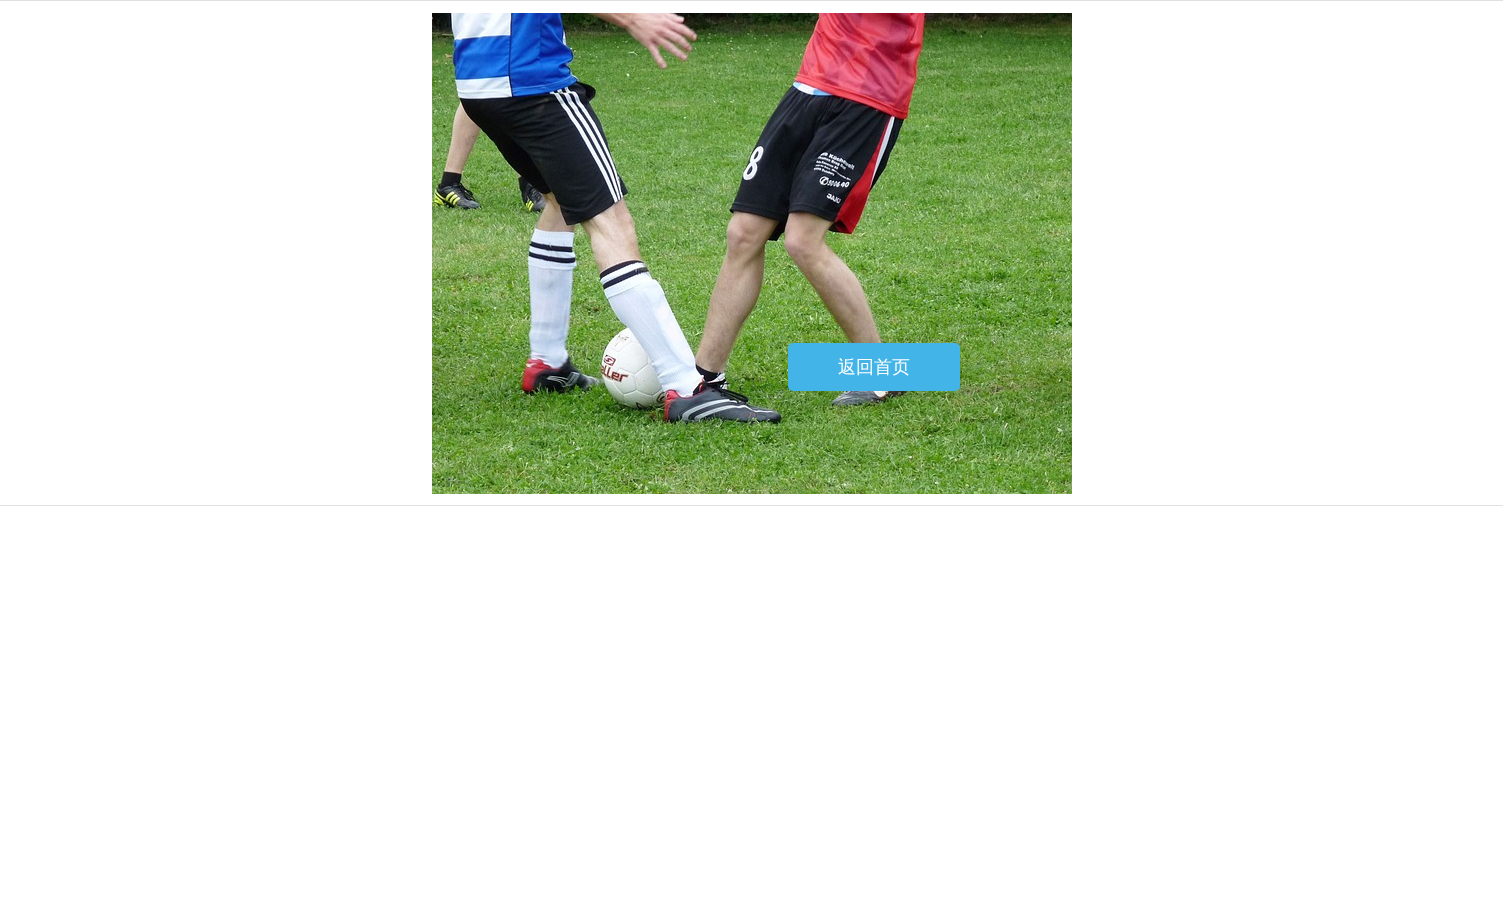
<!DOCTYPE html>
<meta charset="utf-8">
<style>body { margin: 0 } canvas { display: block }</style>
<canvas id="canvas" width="1503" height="897"></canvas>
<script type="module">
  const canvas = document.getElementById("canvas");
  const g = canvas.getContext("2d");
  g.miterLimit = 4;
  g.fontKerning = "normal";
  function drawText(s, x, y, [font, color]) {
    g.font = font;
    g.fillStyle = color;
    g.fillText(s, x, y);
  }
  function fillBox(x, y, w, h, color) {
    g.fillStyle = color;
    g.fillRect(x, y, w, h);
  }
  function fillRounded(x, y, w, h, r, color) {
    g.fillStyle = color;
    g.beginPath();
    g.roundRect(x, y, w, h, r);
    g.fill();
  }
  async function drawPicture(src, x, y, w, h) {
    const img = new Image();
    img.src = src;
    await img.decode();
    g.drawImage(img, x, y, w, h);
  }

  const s1 = ["500 18px WenQuanYi Zen Hei", "#FFFFFF"];

  fillBox(0, 0, 1503, 897, "#FFFFFF");
  fillBox(0, 0, 1503, 1, "#E0E0E0");
  fillBox(0, 505, 1503, 1, "#E0E0E0");
  await drawPicture("pic1.png", 432, 13, 640, 481);
  fillRounded(788, 343, 172, 48, 5, "#43B4E8");
  drawText("返回首页", 838, 373, s1);
</script>
